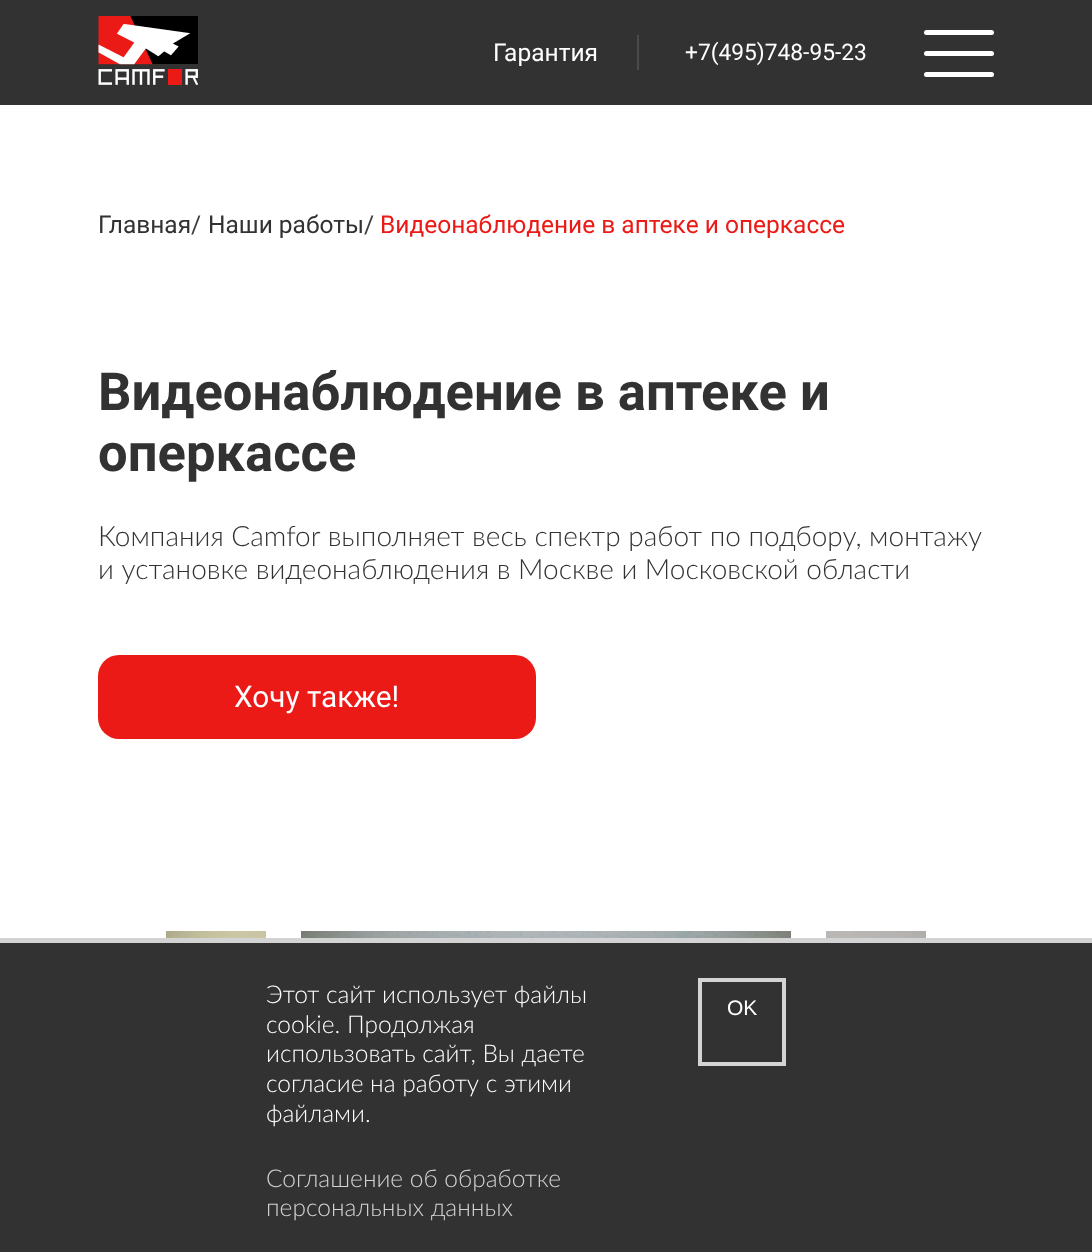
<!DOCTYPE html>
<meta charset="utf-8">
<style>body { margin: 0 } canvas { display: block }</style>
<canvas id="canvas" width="1092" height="1252"></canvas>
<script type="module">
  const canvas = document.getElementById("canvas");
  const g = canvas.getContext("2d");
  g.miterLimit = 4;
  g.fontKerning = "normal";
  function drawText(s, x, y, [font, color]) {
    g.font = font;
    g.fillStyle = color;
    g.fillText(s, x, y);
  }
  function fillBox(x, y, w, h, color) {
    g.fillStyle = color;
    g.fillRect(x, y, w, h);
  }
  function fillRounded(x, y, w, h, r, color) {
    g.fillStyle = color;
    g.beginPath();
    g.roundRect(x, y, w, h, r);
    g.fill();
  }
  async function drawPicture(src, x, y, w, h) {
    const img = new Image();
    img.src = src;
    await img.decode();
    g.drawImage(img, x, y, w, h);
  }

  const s1 = ["24.5px Roboto", "#FFFFFF"];
  const s2 = ["22.75px Roboto", "#FFFFFF"];
  const s3 = ["24.5px Roboto", "#323232"];
  const s4 = ["24.5px Roboto", "#3E3C3C"];
  const s5 = ["24.5px Roboto", "#EB1A16"];
  const s6 = ["bold 52.5px Roboto", "#323232"];
  const s7 = ["300 28px Lato", "#323232"];
  const s8 = ["29.75px Roboto", "#FFFFFF"];
  const s9 = ["300 24.5px Lato", "#FFFFFF"];
  const s10 = ["300 24.5px Lato", "#D3D3D3"];
  const s11 = ["21px Liberation Sans", "#FFFFFF"];

  fillBox(0, 0, 1092, 1252, "#333232");
  await drawPicture("pic1.png", 98, 16, 100, 69);
  fillBox(637, 35, 2, 35, "#4B4B4B");
  drawText("Гарантия", 493, 61, s1);
  drawText("+7(495)748-95-23", 685, 60, s2);
  fillRounded(924, 30, 70, 5, 2.5, "#FFFFFF");
  fillRounded(924, 51, 70, 5, 2.5, "#FFFFFF");
  fillRounded(924, 72, 70, 5, 2.5, "#FFFFFF");
  fillBox(0, 105, 1092, 833, "#FFFFFF");
  drawText("Главная", 98, 233, s3);
  drawText("/", 191, 233, s4);
  drawText("Наши работы", 208, 233, s3);
  drawText("/", 364, 233, s4);
  drawText("Видеонаблюдение в аптеке и оперкассе", 380, 233, s5);
  drawText("Видеонаблюдение в аптеке и", 98, 410, s6);
  drawText("оперкассе", 98, 471, s6);
  drawText("Компания Camfor выполняет весь спектр работ по подбору, монтажу", 98, 546, s7);
  drawText("и установке видеонаблюдения в Москве и Московской области", 98, 579, s7);
  fillRounded(98, 655, 438, 84, 21, "#EB1A16");
  drawText("Хочу также!", 234, 707, s8);
  await drawPicture("pic2.png", 166, 931, 100, 7);
  await drawPicture("pic3.png", 301, 931, 490, 7);
  await drawPicture("pic4.png", 826, 931, 100, 7);
  fillBox(0, 938, 1092, 5, "#D3D3D3");
  drawText("Этот сайт использует файлы", 266, 1003, s9);
  drawText("cookie. Продолжая", 266, 1033, s9);
  drawText("использовать сайт, Вы даете", 266, 1062, s9);
  drawText("согласие на работу с этими", 266, 1092, s9);
  drawText("файлами.", 266, 1122, s9);
  drawText("Соглашение об обработке", 266, 1187, s10);
  drawText("персональных данных", 266, 1216, s10);
  g.strokeStyle = "#D3D3D3";
  g.lineWidth = 4;
  g.strokeRect(700, 980, 84, 84);
  drawText("OK", 727, 1015, s11);
</script>
